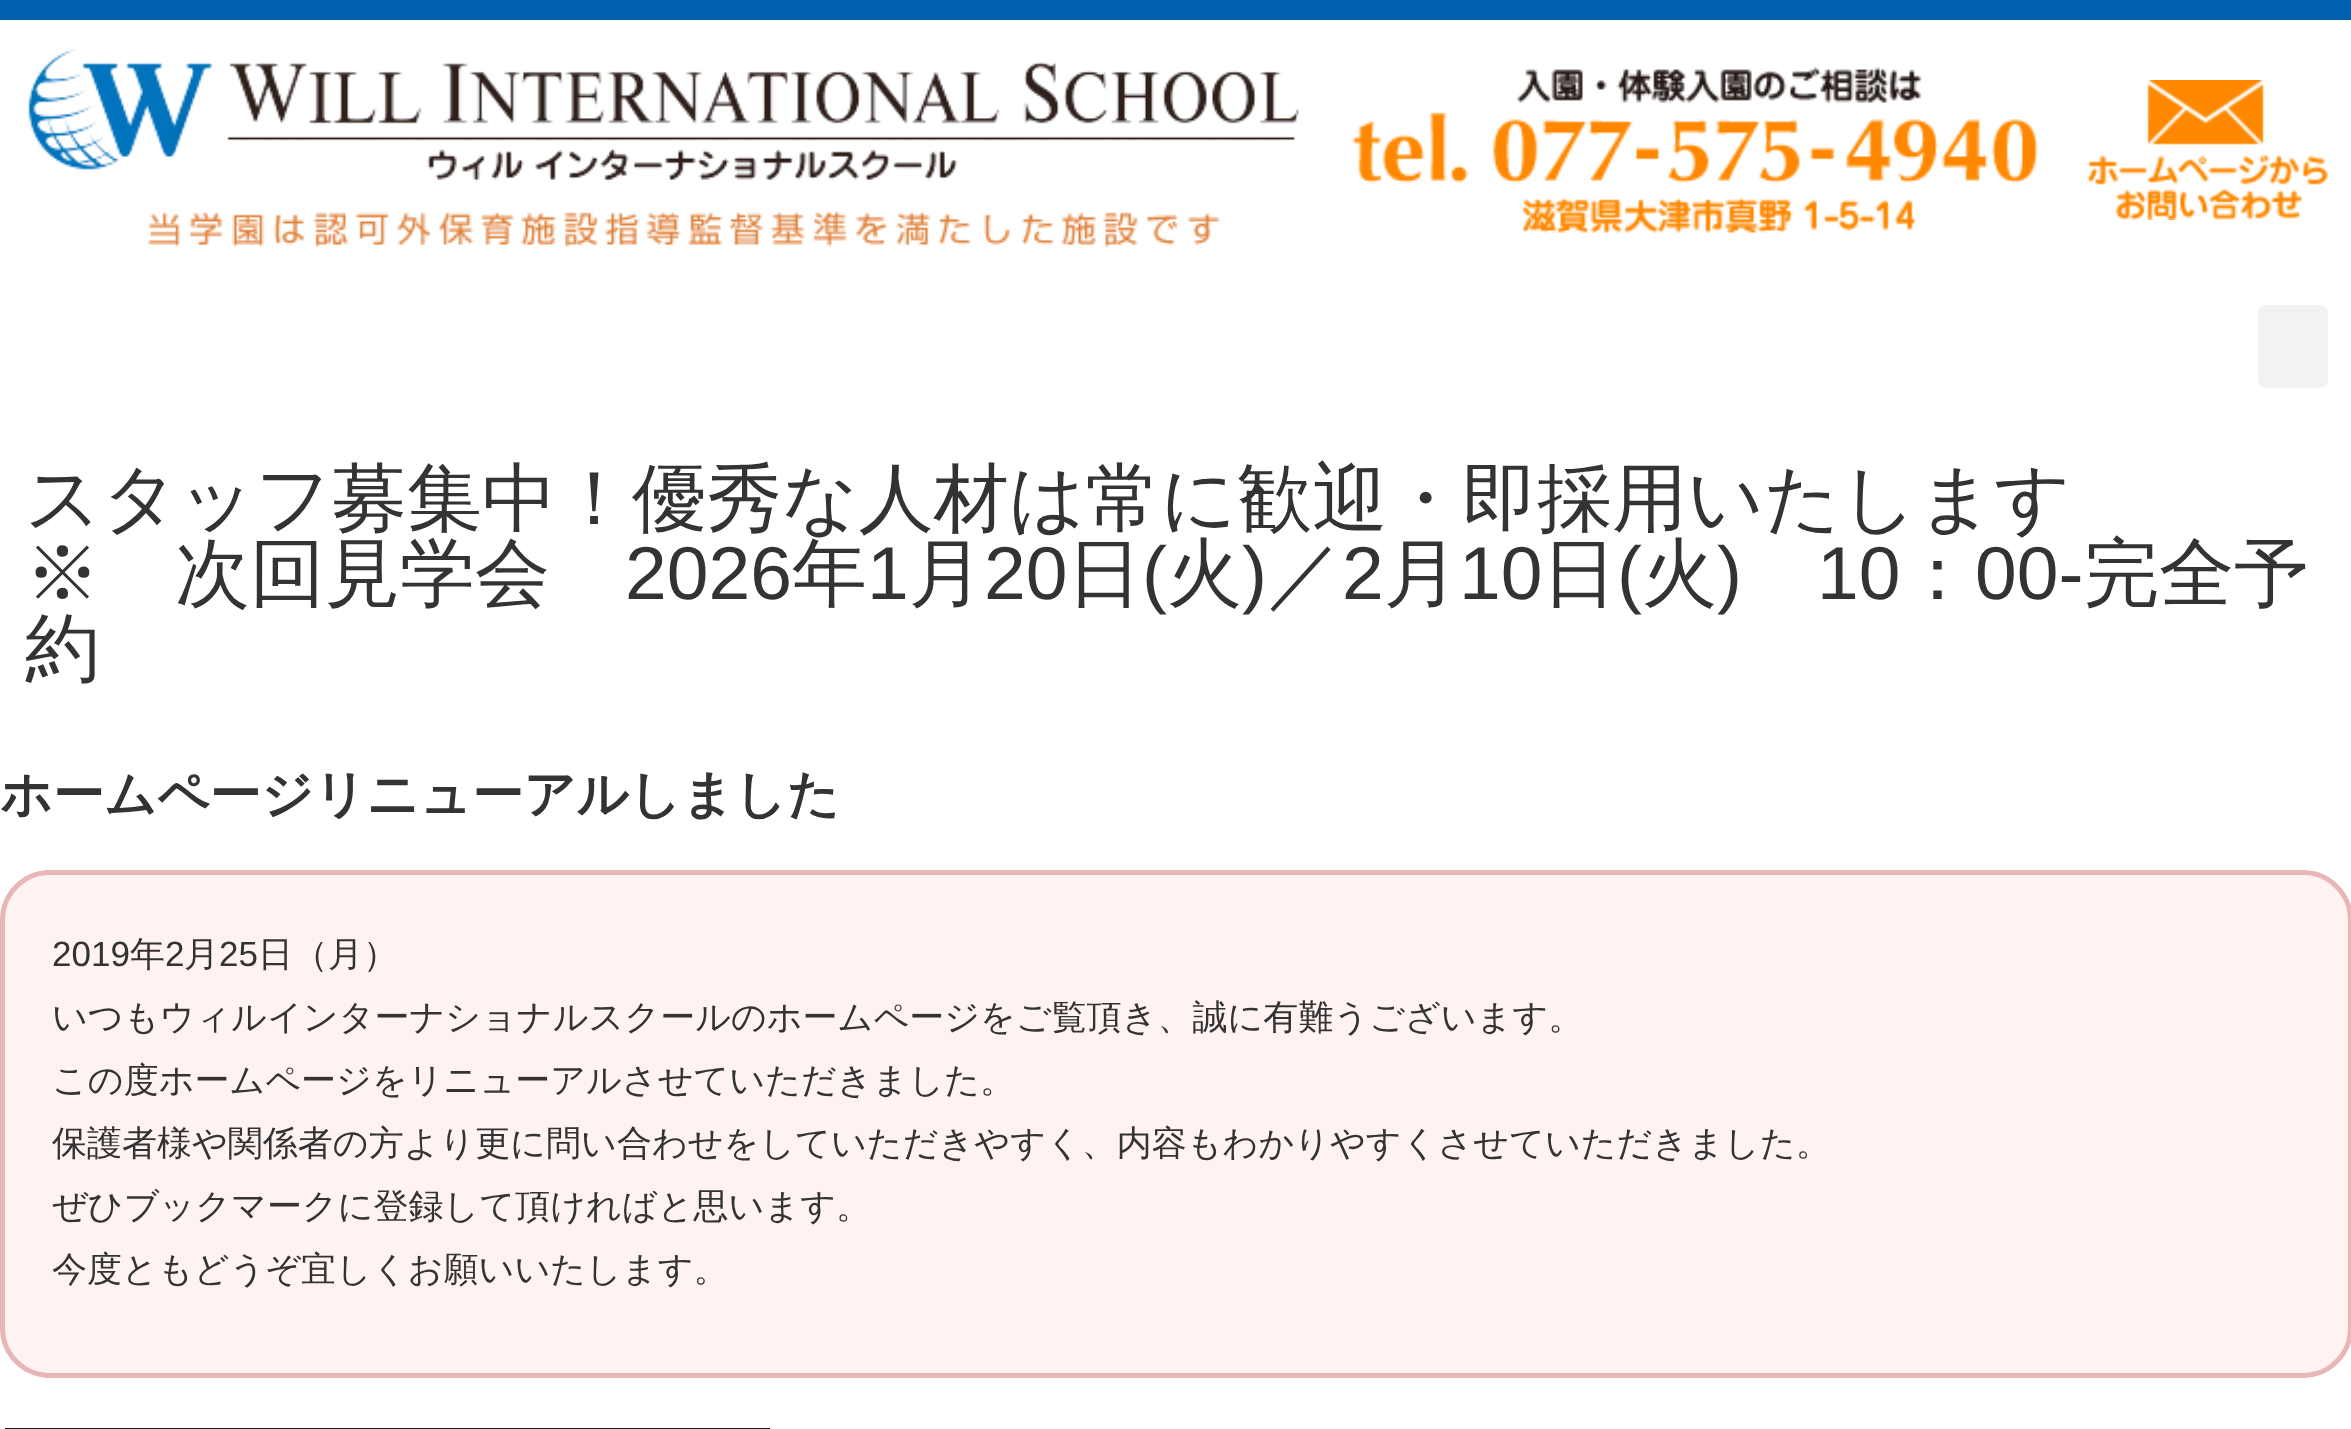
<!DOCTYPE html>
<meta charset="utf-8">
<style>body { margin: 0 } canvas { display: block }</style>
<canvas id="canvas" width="2351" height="1429"></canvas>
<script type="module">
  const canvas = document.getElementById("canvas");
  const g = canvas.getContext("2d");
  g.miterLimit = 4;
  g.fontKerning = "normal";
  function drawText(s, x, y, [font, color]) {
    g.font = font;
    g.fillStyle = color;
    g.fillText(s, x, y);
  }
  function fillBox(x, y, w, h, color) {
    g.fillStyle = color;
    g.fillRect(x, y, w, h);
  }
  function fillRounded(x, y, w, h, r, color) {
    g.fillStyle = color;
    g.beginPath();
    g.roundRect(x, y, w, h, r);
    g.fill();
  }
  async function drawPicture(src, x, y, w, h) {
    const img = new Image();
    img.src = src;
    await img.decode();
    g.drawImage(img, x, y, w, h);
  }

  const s1 = ["500 75px WenQuanYi Zen Hei", "#333333"];
  const s2 = ["75px Liberation Sans", "#333333"];
  const s3 = ["bold 51.5px WenQuanYi Zen Hei", "#333333"];
  const s4 = ["35px Liberation Sans", "#333333"];
  const s5 = ["500 35px WenQuanYi Zen Hei", "#333333"];

  fillBox(0, 0, 2351, 1429, "#FFFFFF");
  fillBox(0, 0, 2351, 20, "#025EAE");
  await drawPicture("pic1.png", 28, 49, 1271, 199);
  await drawPicture("pic2.png", 1352, 67, 686, 166);
  await drawPicture("pic3.png", 2087, 80, 241, 140);
  fillRounded(2258, 305, 70, 83, 8, "#F2F2F2");
  drawText("スタッフ募集中！優秀な人材は常に歓迎・即採用いたします", 25, 524, s1);
  drawText("※　次回見学会", 25, 599, s1);
  drawText("2026", 625, 599, s2);
  drawText("年", 792, 599, s1);
  drawText("1", 867, 599, s2);
  drawText("月", 909, 599, s1);
  drawText("20", 984, 599, s2);
  drawText("日", 1067, 599, s1);
  drawText("(", 1142, 599, s2);
  drawText("火", 1167, 599, s1);
  drawText(")", 1242, 599, s2);
  drawText("／", 1267, 599, s1);
  drawText("2", 1342, 599, s2);
  drawText("月", 1384, 599, s1);
  drawText("10", 1459, 599, s2);
  drawText("日", 1542, 599, s1);
  drawText("(", 1617, 599, s2);
  drawText("火", 1642, 599, s1);
  drawText(")", 1717, 599, s2);
  drawText("10", 1817, 599, s2);
  drawText("：", 1900, 599, s1);
  drawText("00-", 1975, 599, s2);
  drawText("完全予", 2084, 599, s1);
  drawText("約", 25, 674, s1);
  drawText("ホームページリニューアルしました", 0, 812, s3);
  g.fillStyle = "#FFF2F2";
  g.beginPath();
  g.roundRect(2.5, 872.5, 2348, 503, 47.5);
  g.fill();
  g.strokeStyle = "#E8B6B6";
  g.lineWidth = 5;
  g.stroke();
  drawText("2019", 52, 966, s4);
  drawText("年", 130, 966, s5);
  drawText("2", 165, 966, s4);
  drawText("月", 184, 966, s5);
  drawText("25", 219, 966, s4);
  drawText("日（月）", 258, 966, s5);
  drawText("いつもウィルインターナショナルスクールのホームページをご覧頂き、誠に有難うございます。", 52, 1029, s5);
  drawText("この度ホームページをリニューアルさせていただきました。", 52, 1092, s5);
  drawText("保護者様や関係者の方より更に問い合わせをしていただきやすく、内容もわかりやすくさせていただきました。", 52, 1155, s5);
  drawText("ぜひブックマークに登録して頂ければと思います。", 52, 1218, s5);
  drawText("今度ともどうぞ宜しくお願いいたします。", 52, 1281, s5);
  fillBox(5, 1428, 765, 1, "#1A1A1A");
</script>
